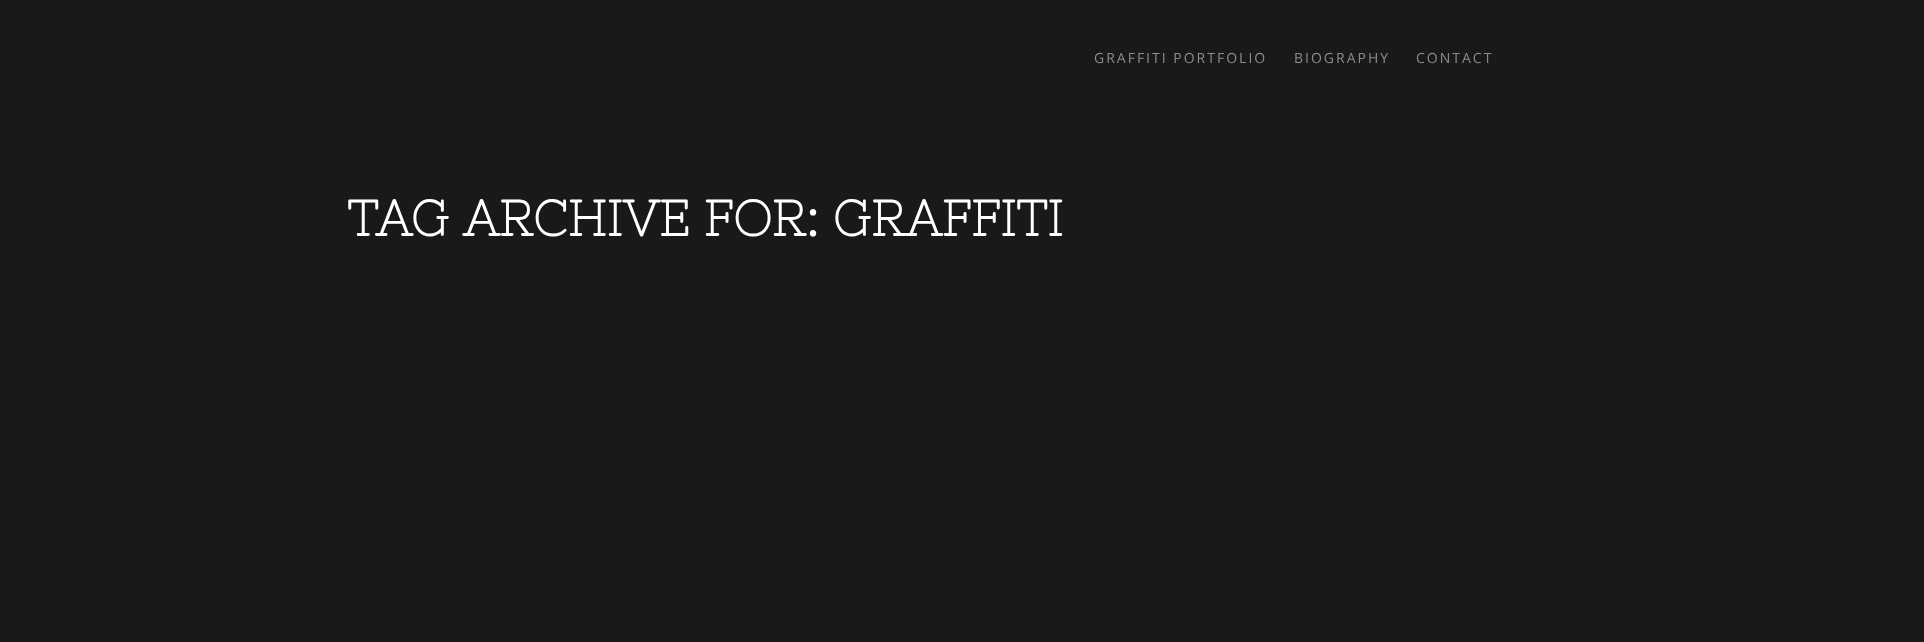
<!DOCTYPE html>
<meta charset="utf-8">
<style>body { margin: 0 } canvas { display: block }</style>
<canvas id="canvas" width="1924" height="642"></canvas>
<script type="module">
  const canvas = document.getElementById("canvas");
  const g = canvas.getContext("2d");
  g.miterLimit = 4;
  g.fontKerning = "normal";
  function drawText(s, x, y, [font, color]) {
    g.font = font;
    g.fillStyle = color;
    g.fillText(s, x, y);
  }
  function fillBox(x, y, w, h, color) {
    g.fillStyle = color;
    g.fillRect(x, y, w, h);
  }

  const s1 = ["14px Open Sans", "#8C8C8C"];
  const s2 = ["bold 50px Nixie One", "#FFFFFF"];

  fillBox(0, 0, 1924, 642, "#191919");
  g.letterSpacing = "2px";
  drawText("GRAFFITI PORTFOLIO", 1094, 63, s1);
  drawText("BIOGRAPHY", 1294, 63, s1);
  drawText("CONTACT", 1416, 63, s1);
  g.letterSpacing = "0px";
  drawText("TAG ARCHIVE FOR: GRAFFITI", 347, 236, s2);
  g.strokeStyle = "#161616";
  g.strokeRect(756.5, 253.5, 409, 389);
</script>
